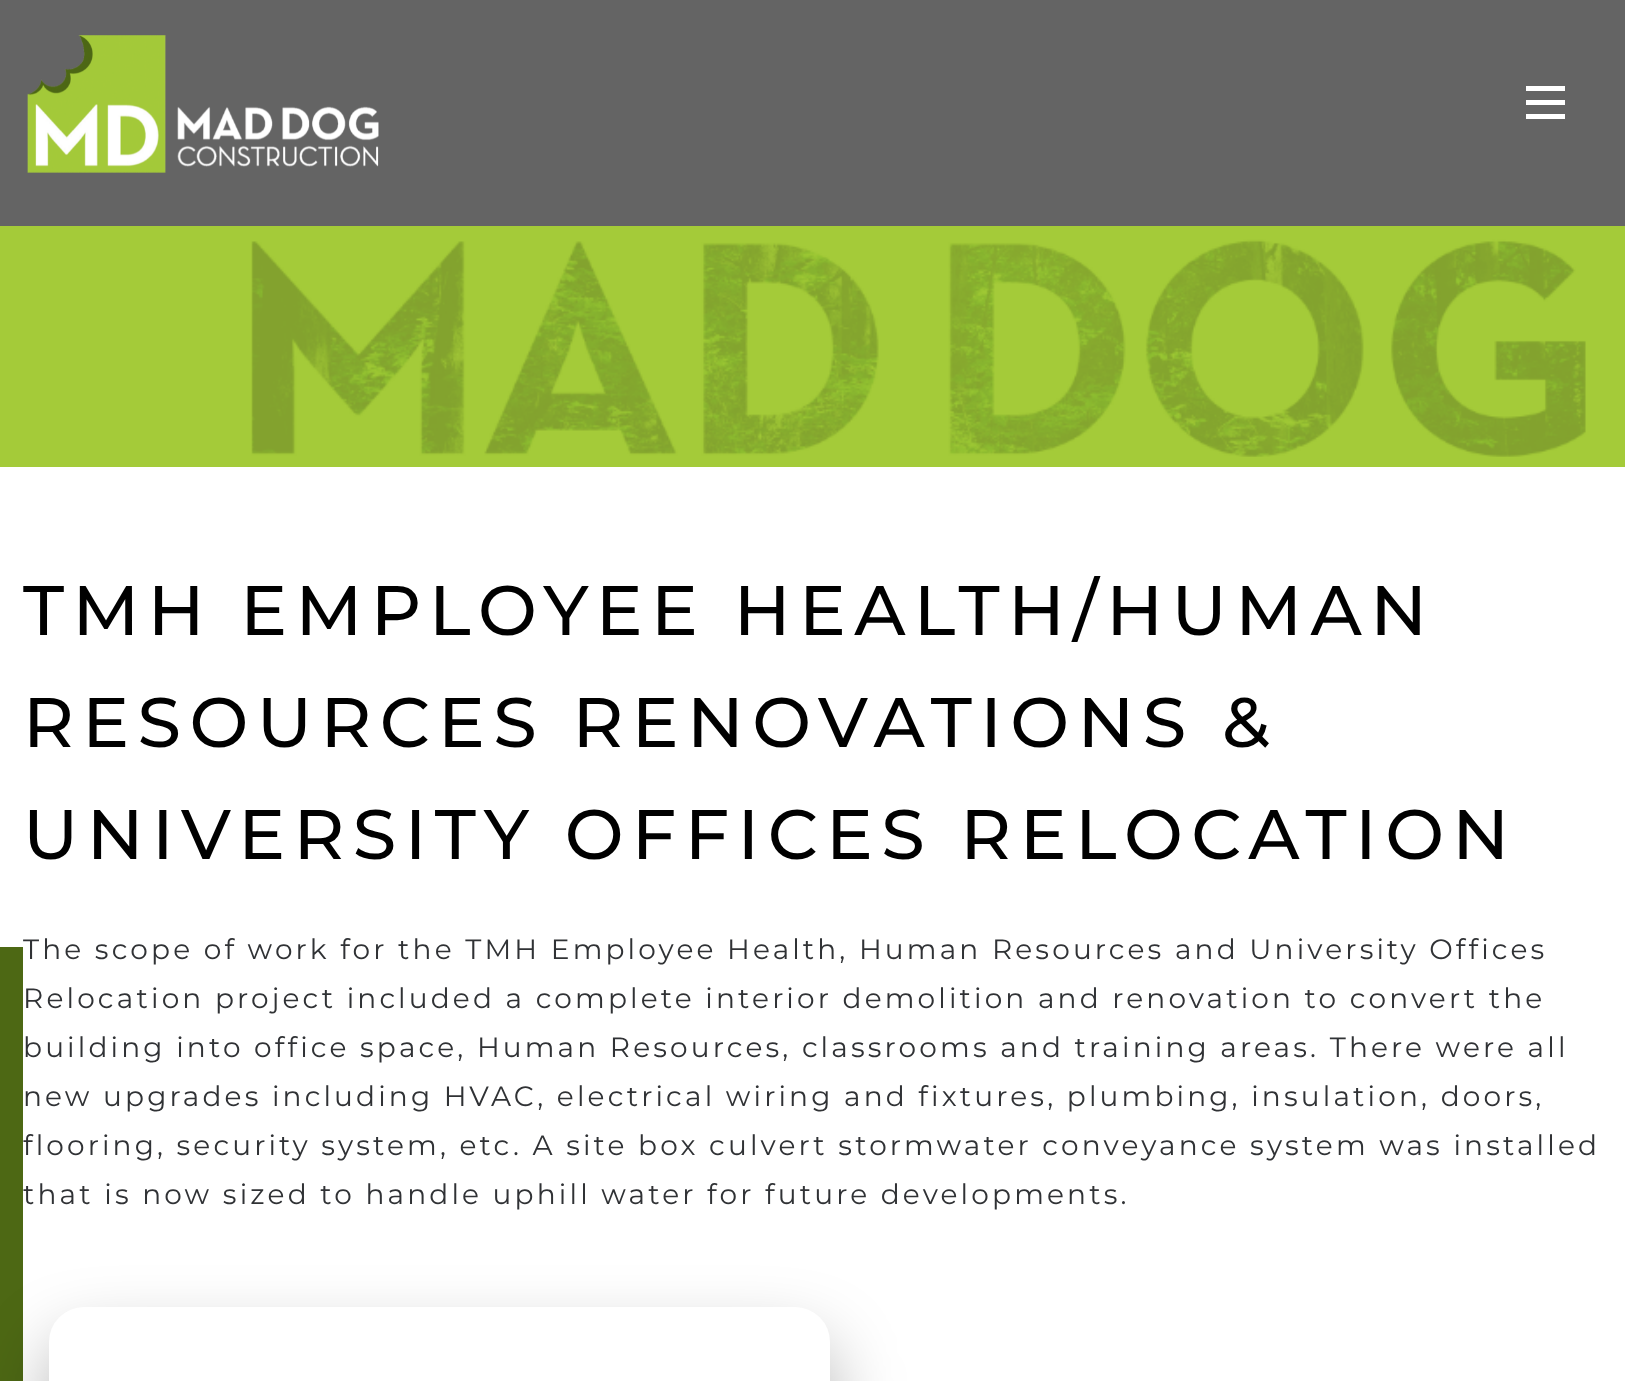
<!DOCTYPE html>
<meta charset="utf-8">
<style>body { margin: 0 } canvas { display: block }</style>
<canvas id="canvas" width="1625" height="1381"></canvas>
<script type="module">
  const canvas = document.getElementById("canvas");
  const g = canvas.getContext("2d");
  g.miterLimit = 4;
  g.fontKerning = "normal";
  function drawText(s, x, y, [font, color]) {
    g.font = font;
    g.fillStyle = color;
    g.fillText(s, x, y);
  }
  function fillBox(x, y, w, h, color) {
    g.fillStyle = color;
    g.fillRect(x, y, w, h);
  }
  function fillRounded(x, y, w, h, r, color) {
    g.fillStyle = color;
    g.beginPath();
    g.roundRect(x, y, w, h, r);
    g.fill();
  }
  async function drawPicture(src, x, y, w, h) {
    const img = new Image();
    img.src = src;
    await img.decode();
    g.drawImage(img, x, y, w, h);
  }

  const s1 = ["500 70px Montserrat", "#000000"];
  const s2 = ["28px Montserrat", "#303235"];

  fillBox(0, 0, 1625, 1381, "#FFFFFF");
  fillBox(0, 0, 1625, 226, "#646464");
  await drawPicture("pic1.png", 27, 35, 352, 138);
  fillBox(1526, 114, 39, 5, "#FFFFFF");
  fillBox(1526, 100, 39, 5, "#FFFFFF");
  fillBox(1526, 86, 39, 5, "#FFFFFF");
  fillBox(0, 226, 1625, 241, "#A4CB39");
  await drawPicture("pic2.png", 249, 226, 1342, 231);
  fillBox(0, 947, 23, 434, "#4D6814");
  g.letterSpacing = "8.4px";
  drawText("TMH EMPLOYEE HEALTH/HUMAN", 23, 635, s1);
  drawText("RESOURCES RENOVATIONS &", 23, 747, s1);
  drawText("UNIVERSITY OFFICES RELOCATION", 23, 859, s1);
  g.letterSpacing = "3.15px";
  drawText("The scope of work for the TMH Employee Health, Human Resources and University Offices", 23, 959, s2);
  drawText("Relocation project included a complete interior demolition and renovation to convert the", 23, 1008, s2);
  drawText("building into office space, Human Resources, classrooms and training areas. There were all", 23, 1057, s2);
  drawText("new upgrades including HVAC, electrical wiring and fixtures, plumbing, insulation, doors,", 23, 1106, s2);
  drawText("flooring, security system, etc. A site box culvert stormwater conveyance system was installed", 23, 1155, s2);
  drawText("that is now sized to handle uphill water for future developments.", 23, 1204, s2);
  g.fillStyle = "rgba(0, 0, 0, 0.3)";
  g.filter = "blur(35px)";
  g.beginPath();
  g.roundRect(49, 1342, 781, 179, 35);
  g.fill();
  g.filter = "none";
  fillRounded(49, 1307, 781, 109, 35, "#FFFFFF");
</script>
